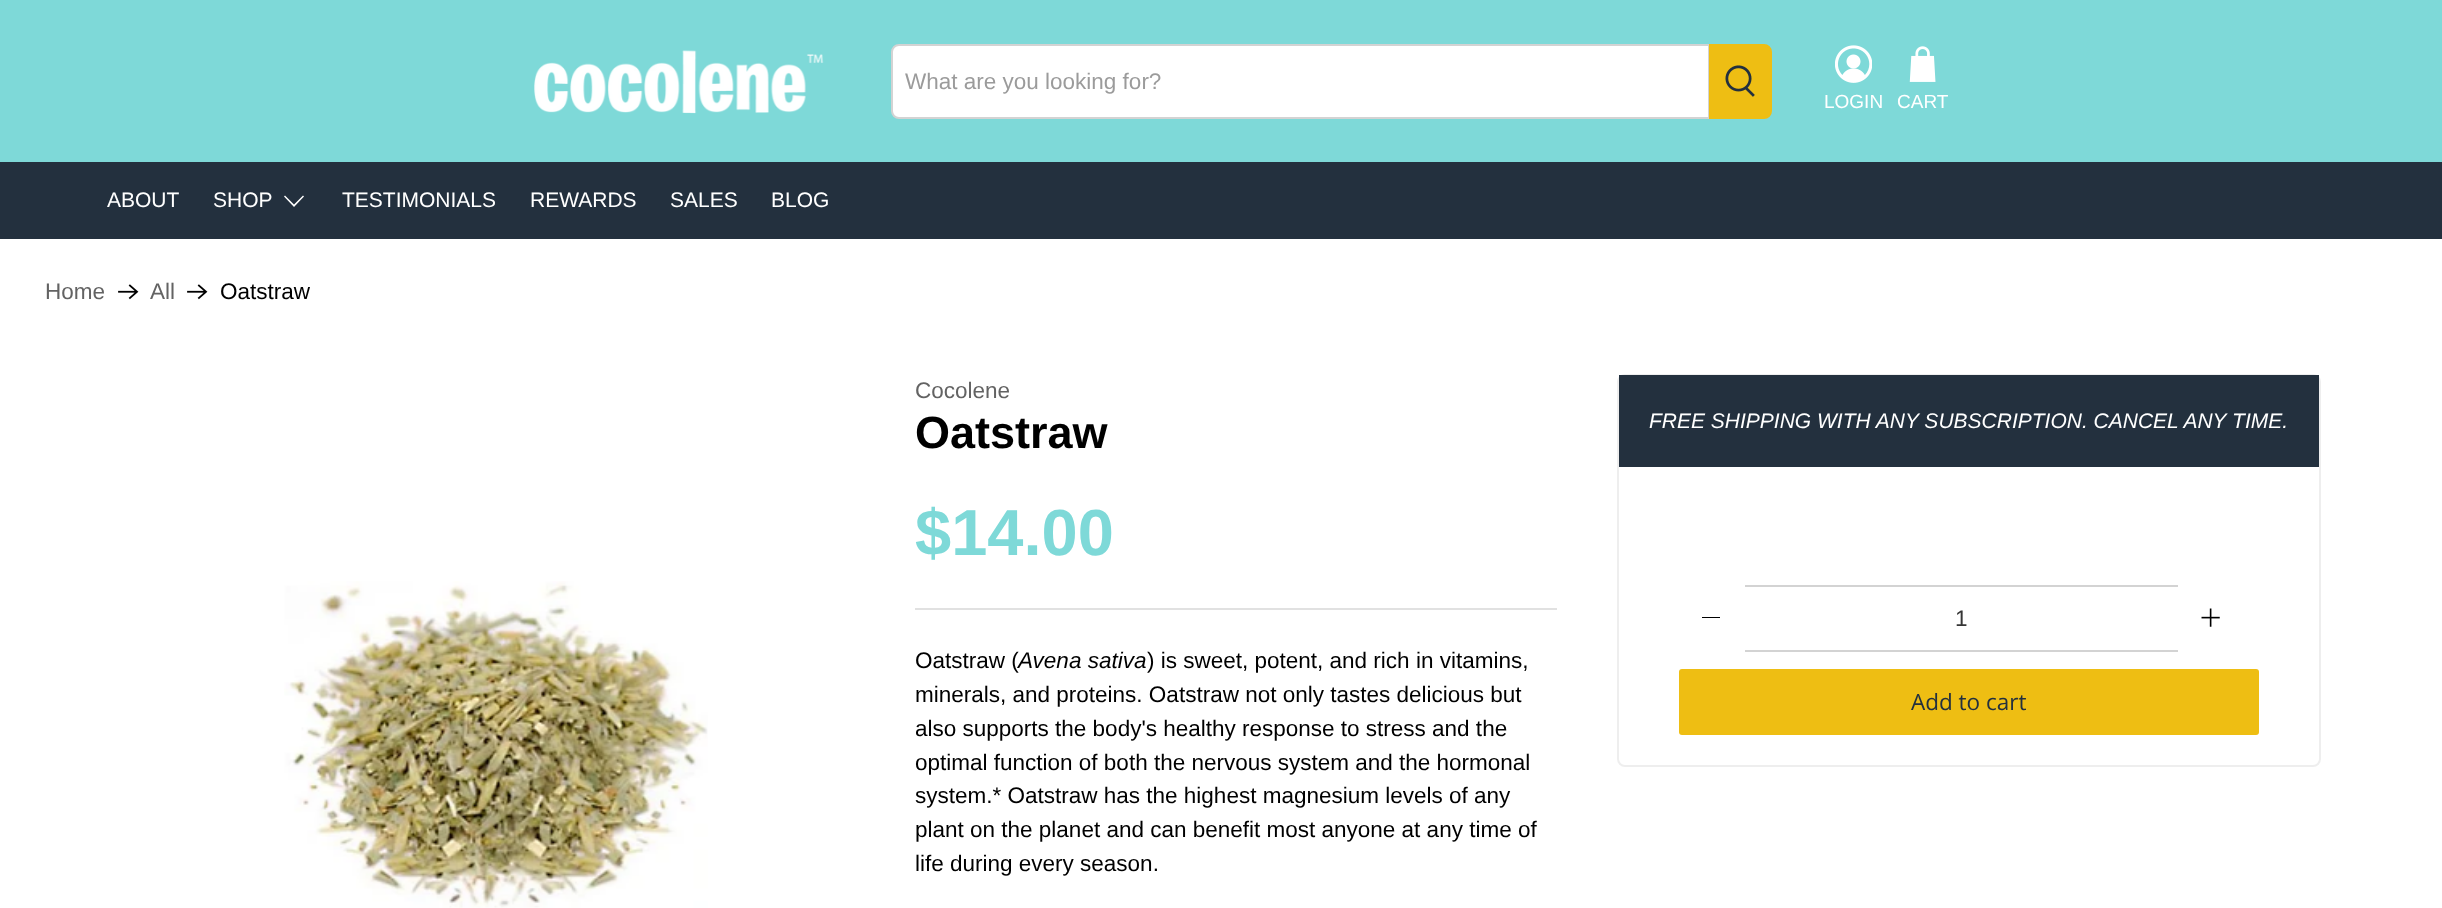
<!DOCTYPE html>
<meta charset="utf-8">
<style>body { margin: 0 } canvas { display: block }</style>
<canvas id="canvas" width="2442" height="908"></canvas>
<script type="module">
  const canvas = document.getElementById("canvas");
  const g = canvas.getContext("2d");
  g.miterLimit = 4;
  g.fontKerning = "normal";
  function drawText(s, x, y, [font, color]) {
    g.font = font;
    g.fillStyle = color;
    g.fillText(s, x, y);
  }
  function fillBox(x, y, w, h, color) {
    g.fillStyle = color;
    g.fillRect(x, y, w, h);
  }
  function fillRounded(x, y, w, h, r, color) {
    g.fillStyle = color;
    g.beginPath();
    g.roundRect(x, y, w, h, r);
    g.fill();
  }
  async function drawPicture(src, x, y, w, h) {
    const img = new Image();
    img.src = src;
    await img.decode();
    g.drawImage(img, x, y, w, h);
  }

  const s1 = ["22.5px Liberation Sans", "#9B9B9B"];
  const s2 = ["19px Liberation Sans", "#FFFFFF"];
  const s3 = ["21px Liberation Sans", "#FFFFFF"];
  const s4 = ["22.5px Liberation Sans", "#636363"];
  const s5 = ["22.5px Liberation Sans", "#000000"];
  const s6 = ["bold 45px Liberation Sans", "#000000"];
  const s7 = ["bold 65px Liberation Sans", "#7ED9D8"];
  const s8 = ["italic 22.5px Liberation Sans", "#000000"];
  const s9 = ["italic 21px Liberation Sans", "#FFFFFF"];
  const s10 = ["22.5px Liberation Sans", "#363636"];
  const s11 = ["22.5px Open Sans", "#23303E"];

  fillBox(0, 0, 2442, 908, "#FFFFFF");
  fillBox(0, 0, 2442, 162, "#7ED9D8");
  await drawPicture("pic1.png", 534, 50, 290, 64);
  g.fillStyle = "#FFFFFF";
  g.beginPath();
  g.roundRect(892, 45, 817, 73, [7, 0, 0, 7]);
  g.fill();
  g.strokeStyle = "#D3D3D3";
  g.lineWidth = 2;
  g.stroke();
  drawText("What are you looking for?", 905, 89, s1);
  g.fillStyle = "#EEBE13";
  g.beginPath();
  g.roundRect(1710, 45, 61, 73, [0, 7, 7, 0]);
  g.fill();
  g.strokeStyle = "#EEBE13";
  g.stroke();
  await drawPicture("pic2.png", 1725, 65, 30, 32);
  await drawPicture("pic3.png", 1835, 45, 37, 38);
  drawText("LOGIN", 1824, 108, s2);
  await drawPicture("pic4.png", 1909, 46, 27, 36);
  drawText("CART", 1897, 108, s2);
  fillBox(0, 162, 2442, 77, "#23303E");
  drawText("ABOUT", 107, 207, s3);
  drawText("SHOP", 213, 207, s3);
  g.beginPath();
  g.moveTo(294, 207);
  g.lineTo(284, 196.5);
  g.lineTo(285, 195.5);
  g.lineTo(294, 204.5);
  g.lineTo(303, 195.5);
  g.lineTo(304, 196.5);
  g.closePath();
  g.fill();
  drawText("TESTIMONIALS", 342, 207, s3);
  drawText("REWARDS", 530, 207, s3);
  drawText("SALES", 670, 207, s3);
  drawText("BLOG", 771, 207, s3);
  drawText("Home", 45, 299, s4);
  await drawPicture("pic5.png", 118, 284, 21, 16);
  drawText("All", 150, 299, s4);
  await drawPicture("pic5.png", 187, 284, 21, 16);
  drawText("Oatstraw", 220, 299, s5);
  await drawPicture("pic6.png", 284, 581, 424, 327);
  drawText("Cocolene", 915, 398, s4);
  drawText("Oatstraw", 915, 448, s6);
  drawText("$14.00", 915, 555, s7);
  fillBox(915, 608, 642, 2, "#E1E1E1");
  drawText("Oatstraw (", 915, 668, s5);
  drawText("Avena sativa", 1018, 668, s8);
  drawText(") is sweet, potent, and rich in vitamins,", 1147, 668, s5);
  drawText("minerals, and proteins. Oatstraw not only tastes delicious but", 915, 702, s5);
  drawText("also supports the body's healthy response to stress and the", 915, 736, s5);
  drawText("optimal function of both the nervous system and the hormonal", 915, 770, s5);
  drawText("system.* Oatstraw has the highest magnesium levels of any", 915, 803, s5);
  drawText("plant on the planet and can benefit most anyone at any time of", 915, 837, s5);
  drawText("life during every season.", 915, 871, s5);
  g.beginPath();
  g.roundRect(1618, 375, 702, 391, 7);
  g.strokeStyle = "#EEEEEE";
  g.stroke();
  fillBox(1619, 375, 700, 92, "#23303E");
  drawText("FREE SHIPPING WITH ANY SUBSCRIPTION. CANCEL ANY TIME.", 1649, 428, s9);
  fillBox(1702, 617, 18, 1, "#000000");
  fillBox(1745, 585, 433, 2, "#D3D3D3");
  fillBox(1745, 650, 433, 2, "#D3D3D3");
  drawText("1", 1955, 626, s10);
  await drawPicture("pic7.png", 2201, 608, 19, 19);
  fillRounded(1679, 669, 580, 66, 3, "#EEBE13");
  drawText("Add to cart", 1911, 710, s11);
</script>
